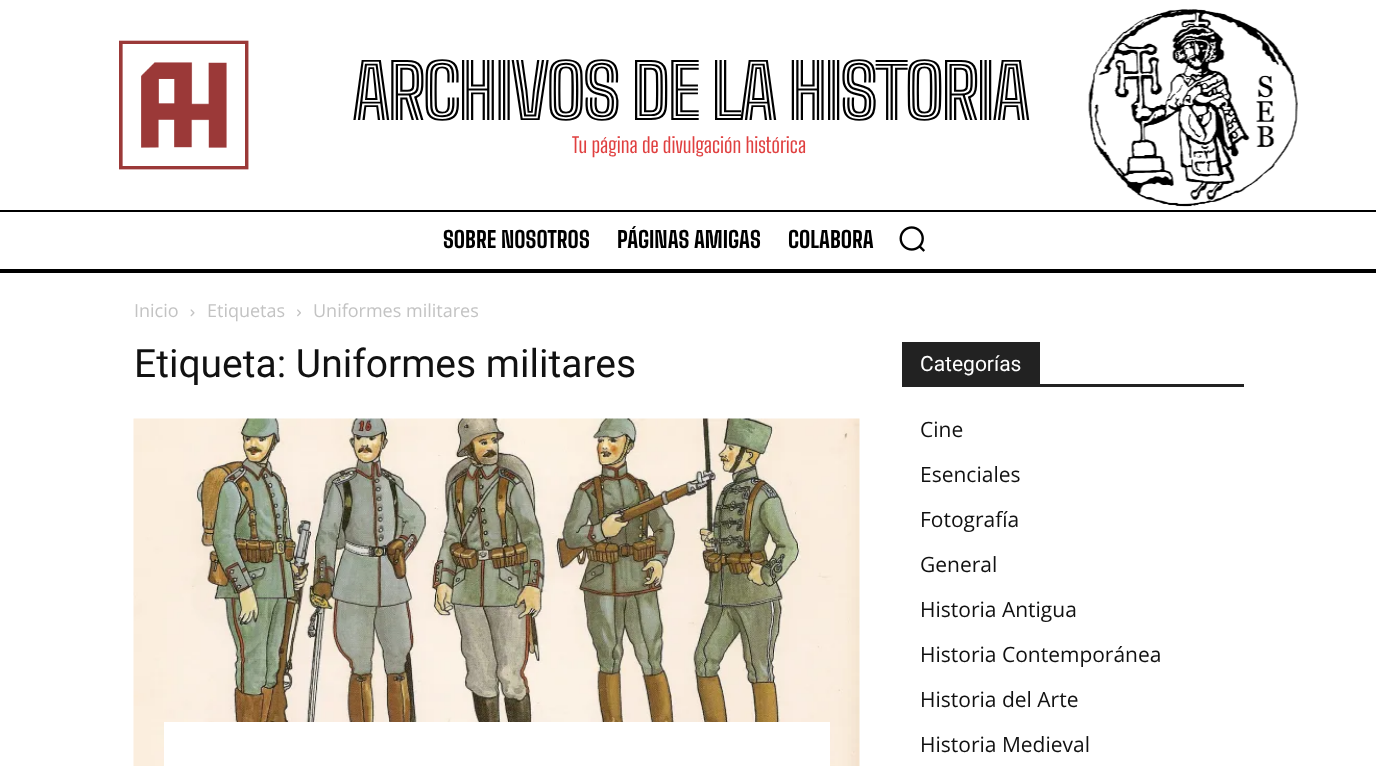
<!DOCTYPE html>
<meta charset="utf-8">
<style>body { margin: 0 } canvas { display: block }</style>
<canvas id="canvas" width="1376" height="766"></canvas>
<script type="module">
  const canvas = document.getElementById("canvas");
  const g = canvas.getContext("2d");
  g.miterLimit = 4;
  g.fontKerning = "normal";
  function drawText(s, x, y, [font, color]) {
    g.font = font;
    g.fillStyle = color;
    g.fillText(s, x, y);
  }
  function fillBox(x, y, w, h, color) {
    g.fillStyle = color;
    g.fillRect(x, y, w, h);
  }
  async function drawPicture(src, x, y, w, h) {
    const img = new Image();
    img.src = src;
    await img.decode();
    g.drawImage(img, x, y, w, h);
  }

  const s1 = ["900 75px Big Shoulders Inline Text", "#000000"];
  const s2 = ["21px Big Shoulders Text", "#E04040"];
  const s3 = ["800 22.5px Big Shoulders Text", "#000000"];
  const s4 = ["18px Open Sans", "#C3C3C3"];
  const s5 = ["39px Roboto", "#111111"];
  const s6 = ["21px Roboto", "#FFFFFF"];
  const s7 = ["21px Open Sans", "#111111"];

  fillBox(0, 0, 1376, 766, "#FFFFFF");
  await drawPicture("pic1.png", 119, 40, 130, 130);
  g.letterSpacing = "-3px";
  drawText("ARCHIVOS DE LA HISTORIA", 352, 120, s1);
  g.letterSpacing = "0px";
  drawText("Tu página de divulgación histórica", 572, 153, s2);
  await drawPicture("pic2.png", 1088, 9, 210, 198);
  fillBox(0, 210, 1376, 2, "#000000");
  fillBox(0, 269, 1376, 4, "#000000");
  drawText("SOBRE NOSOTROS", 443, 248, s3);
  drawText("PÁGINAS AMIGAS", 617, 248, s3);
  drawText("COLABORA", 788, 248, s3);
  await drawPicture("pic3.png", 899, 226, 26, 26);
  drawText("Inicio", 134, 317, s4);
  await drawPicture("pic4.png", 190, 309, 5, 8);
  drawText("Etiquetas", 207, 317, s4);
  await drawPicture("pic5.png", 297, 309, 4, 8);
  drawText("Uniformes militares", 313, 317, s4);
  drawText("Etiqueta: Uniformes militares", 134, 377, s5);
  await drawPicture("pic6.png", 133, 418, 727, 348);
  fillBox(164, 722, 666, 44, "#FFFFFF");
  fillBox(902, 384, 342, 3, "#222222");
  fillBox(902, 342, 138, 42, "#222222");
  drawText("Categorías", 920, 371, s6);
  drawText("Cine", 920, 437, s7);
  drawText("Esenciales", 920, 482, s7);
  drawText("Fotografía", 920, 527, s7);
  drawText("General", 920, 572, s7);
  drawText("Historia Antigua", 920, 617, s7);
  drawText("Historia Contemporánea", 920, 662, s7);
  drawText("Historia del Arte", 920, 707, s7);
  drawText("Historia Medieval", 920, 752, s7);
</script>
